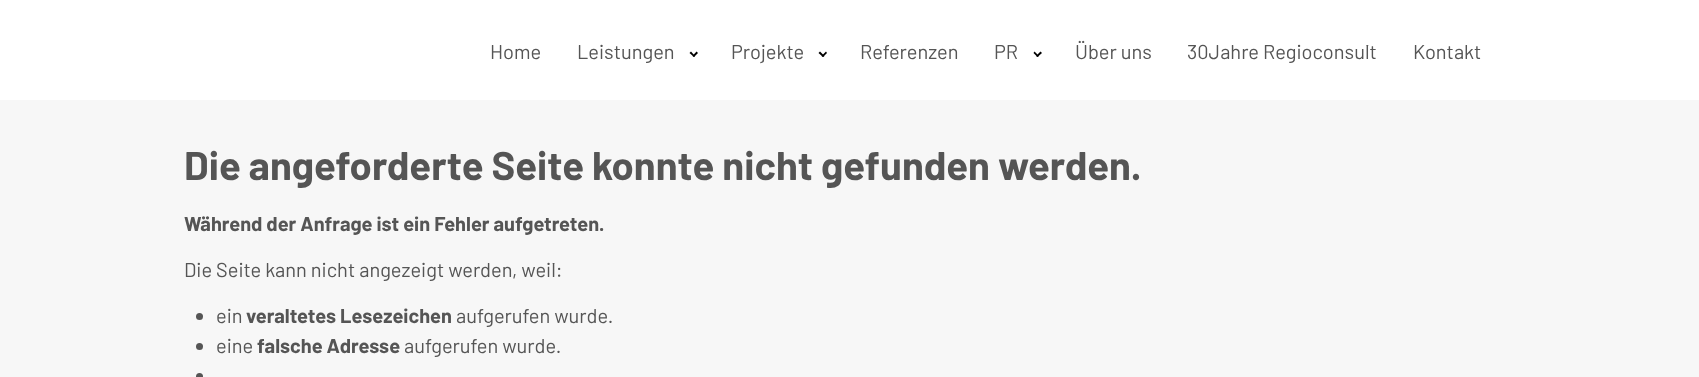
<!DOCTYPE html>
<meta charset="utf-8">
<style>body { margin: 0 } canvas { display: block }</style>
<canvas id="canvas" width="1699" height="377"></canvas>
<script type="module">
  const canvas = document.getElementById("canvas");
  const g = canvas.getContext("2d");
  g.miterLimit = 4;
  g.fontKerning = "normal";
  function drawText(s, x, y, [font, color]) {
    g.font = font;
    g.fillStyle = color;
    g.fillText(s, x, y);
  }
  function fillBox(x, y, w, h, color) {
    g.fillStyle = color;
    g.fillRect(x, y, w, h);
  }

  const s1 = ["20px Barlow", "#555555"];
  const s2 = ["bold 40px Barlow", "#555555"];
  const s3 = ["bold 20px Barlow", "#555555"];

  fillBox(0, 0, 1699, 377, "#F7F7F7");
  fillBox(0, 0, 1699, 100, "#FFFFFF");
  drawText("Home", 490, 59, s1);
  drawText("Leistungen", 577, 59, s1);
  g.fillStyle = "#000000";
  g.beginPath();
  g.moveTo(696.5, 51.5);
  g.lineTo(698, 53);
  g.lineTo(694, 57);
  g.lineTo(692.5, 56);
  g.closePath();
  g.fill();
  g.beginPath();
  g.moveTo(691, 51.5);
  g.lineTo(695, 56);
  g.lineTo(694, 57);
  g.lineTo(689.5, 53);
  g.closePath();
  g.fill();
  drawText("Projekte", 731, 59, s1);
  g.fillStyle = "#000000";
  g.beginPath();
  g.moveTo(826, 51.5);
  g.lineTo(827, 53);
  g.lineTo(823, 57);
  g.lineTo(821.5, 56);
  g.closePath();
  g.fill();
  g.beginPath();
  g.moveTo(820, 51.5);
  g.lineTo(824.5, 56);
  g.lineTo(823, 57);
  g.lineTo(818.5, 53);
  g.closePath();
  g.fill();
  drawText("Referenzen", 860, 59, s1);
  drawText("PR", 994, 59, s1);
  g.fillStyle = "#000000";
  g.beginPath();
  g.moveTo(1040.5, 51.5);
  g.lineTo(1042, 53);
  g.lineTo(1037.5, 57);
  g.lineTo(1036, 56);
  g.closePath();
  g.fill();
  g.beginPath();
  g.moveTo(1034.5, 51.5);
  g.lineTo(1039, 56);
  g.lineTo(1037.5, 57);
  g.lineTo(1033.5, 53);
  g.closePath();
  g.fill();
  drawText("Über uns", 1075, 59, s1);
  drawText("30Jahre Regioconsult", 1187, 59, s1);
  drawText("Kontakt", 1413, 59, s1);
  drawText("Die angeforderte Seite konnte nicht gefunden werden.", 184, 180, s2);
  drawText("Während der Anfrage ist ein Fehler aufgetreten.", 184, 231, s3);
  drawText("Die Seite kann nicht angezeigt werden, weil:", 184, 277, s1);
  g.beginPath();
  g.arc(199.5, 316.5, 3.5, 0, Math.PI * 2);
  g.fill();
  drawText("ein", 216, 323, s1);
  drawText("veraltetes Lesezeichen", 246, 323, s3);
  drawText("aufgerufen wurde.", 456, 323, s1);
  g.beginPath();
  g.arc(199.5, 346.5, 3.5, 0, Math.PI * 2);
  g.fill();
  drawText("eine", 216, 353, s1);
  drawText("falsche Adresse", 257, 353, s3);
  drawText("aufgerufen wurde.", 404, 353, s1);
  g.beginPath();
  g.arc(199.5, 376.5, 3.5, 0, Math.PI * 2);
  g.fill();
</script>
